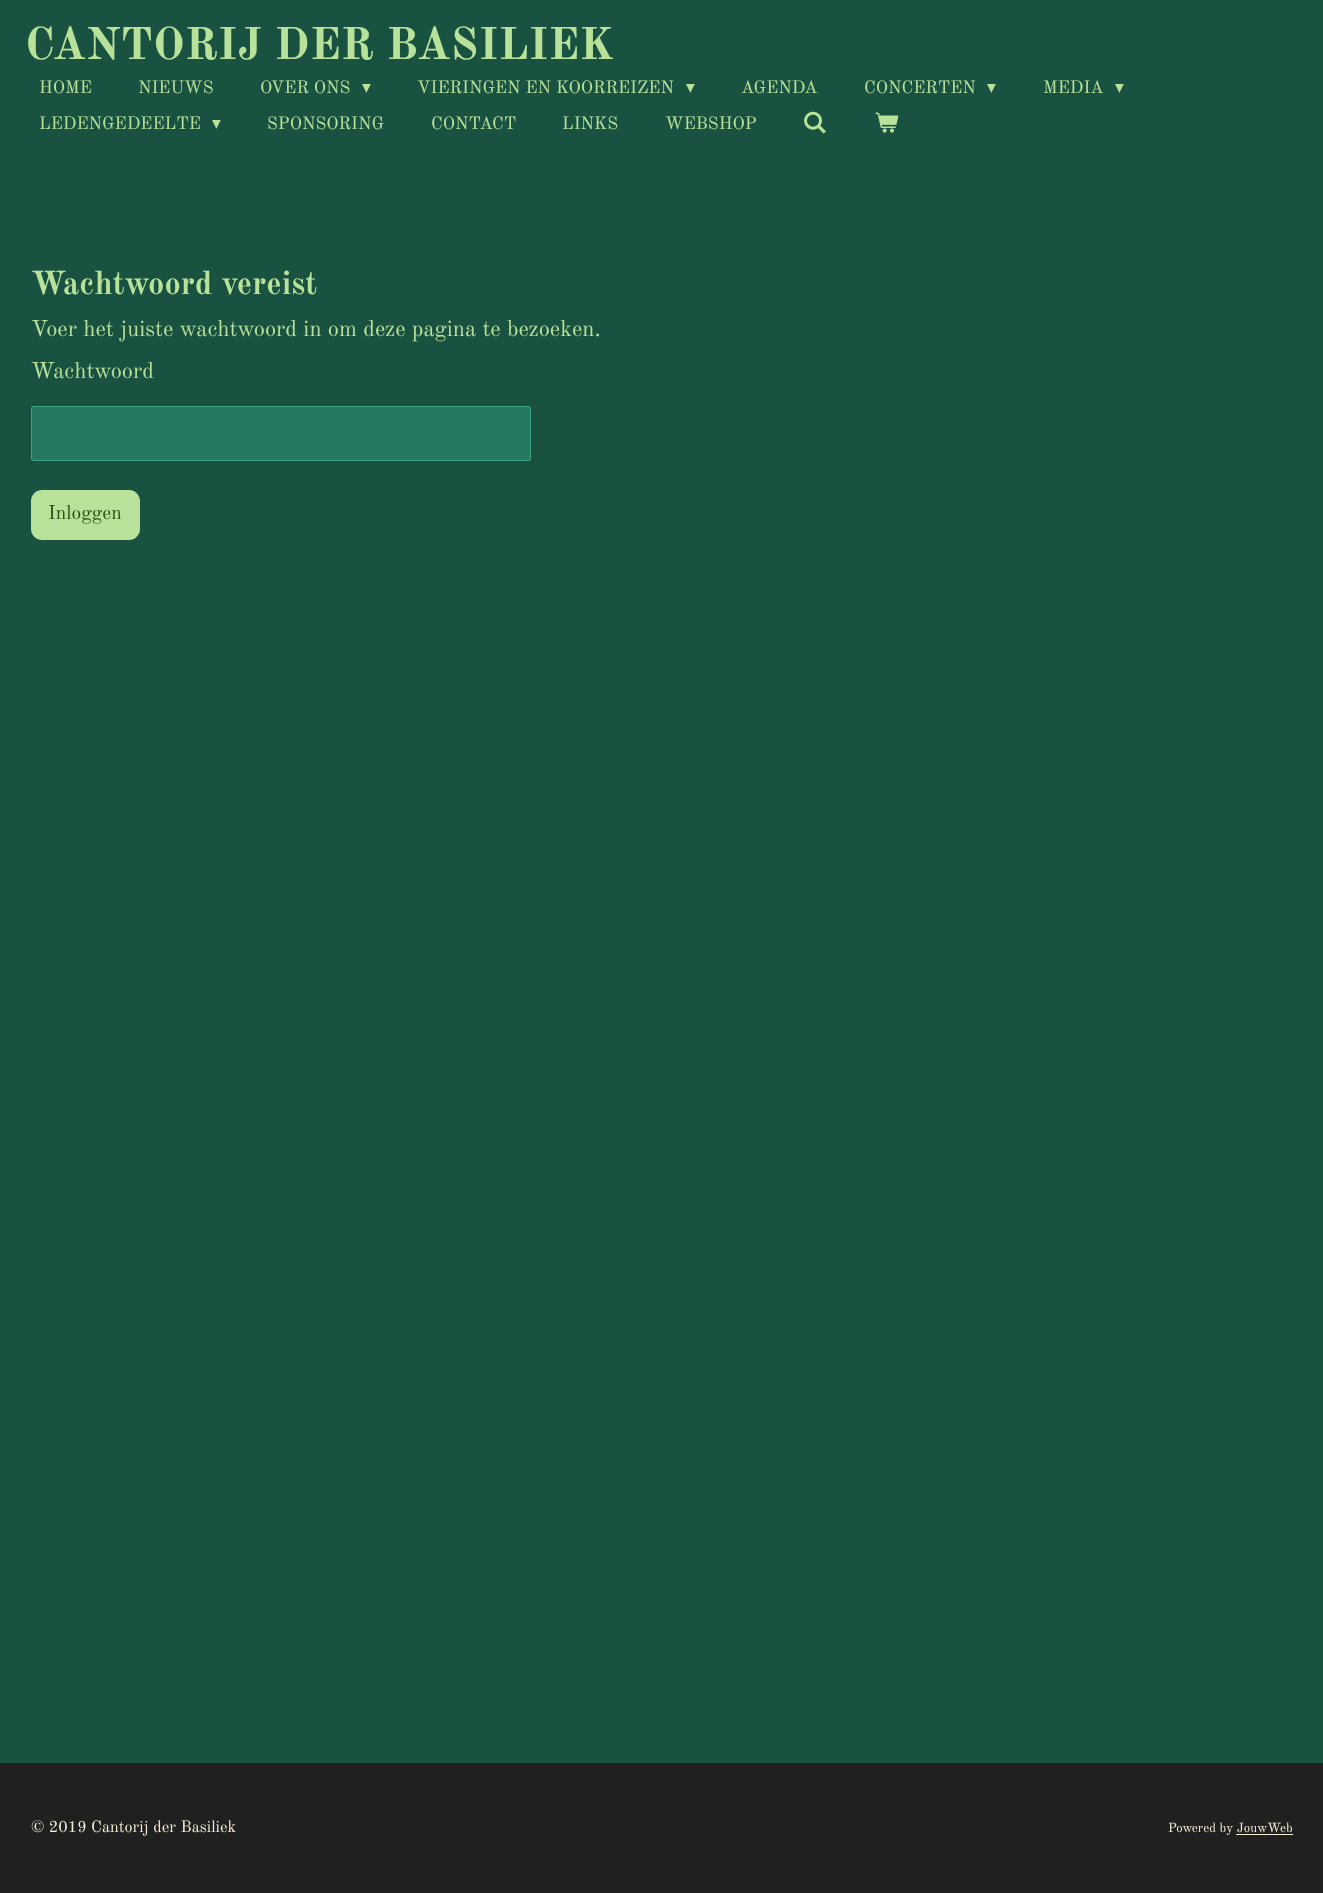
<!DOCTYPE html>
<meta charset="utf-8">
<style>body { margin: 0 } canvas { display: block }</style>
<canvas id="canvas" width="1323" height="1893"></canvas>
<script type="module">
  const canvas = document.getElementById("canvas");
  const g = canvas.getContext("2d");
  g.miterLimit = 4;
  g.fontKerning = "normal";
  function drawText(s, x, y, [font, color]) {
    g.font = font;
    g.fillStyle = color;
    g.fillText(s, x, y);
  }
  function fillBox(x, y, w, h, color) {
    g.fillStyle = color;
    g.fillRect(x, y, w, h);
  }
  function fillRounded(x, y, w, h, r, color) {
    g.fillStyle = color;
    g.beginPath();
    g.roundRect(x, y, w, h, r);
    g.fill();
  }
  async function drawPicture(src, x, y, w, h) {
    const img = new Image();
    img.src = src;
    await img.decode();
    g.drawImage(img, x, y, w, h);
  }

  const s1 = ["bold 45px Old Standard TT", "#B8E19A"];
  const s2 = ["17.5px Old Standard TT", "#B8E19A"];
  const s3 = ["17.5px DejaVu Sans", "#B8E19A"];
  const s4 = ["bold 32.5px Old Standard TT", "#B8E19A"];
  const s5 = ["22.5px Old Standard TT", "#B8E19A"];
  const s6 = ["19.5px Old Standard TT", "#2D4C17"];
  const s7 = ["16.25px Old Standard TT", "#F6EED2"];
  const s8 = ["13px Old Standard TT", "#F6EED2"];

  fillBox(0, 0, 1323, 1893, "#195241");
  drawText("CANTORIJ DER BASILIEK", 25, 59, s1);
  drawText("HOME", 39, 93, s2);
  drawText("NIEUWS", 138, 93, s2);
  drawText("OVER ONS", 260, 93, s2);
  drawText("▾", 362, 93, s3);
  drawText("VIERINGEN EN KOORREIZEN", 417, 93, s2);
  drawText("▾", 686, 93, s3);
  drawText("AGENDA", 741, 93, s2);
  drawText("CONCERTEN", 864, 93, s2);
  drawText("▾", 987, 93, s3);
  drawText("MEDIA", 1043, 93, s2);
  drawText("▾", 1115, 93, s3);
  drawText("LEDENGEDEELTE", 39, 129, s2);
  drawText("▾", 212, 129, s3);
  drawText("SPONSORING", 267, 129, s2);
  drawText("CONTACT", 431, 129, s2);
  drawText("LINKS", 562, 129, s2);
  drawText("WEBSHOP", 665, 129, s2);
  await drawPicture("pic1.png", 804, 111, 22, 23);
  await drawPicture("pic2.png", 875, 112, 24, 21);
  drawText("Wachtwoord vereist", 31, 294, s4);
  drawText("Voer het juiste wachtwoord in om deze pagina te bezoeken.", 31, 336, s5);
  drawText("Wachtwoord", 31, 378, s5);
  fillRounded(31, 406, 500, 55, 2.5, "#257960");
  g.beginPath();
  g.roundRect(31.5, 406.5, 499, 54, 2);
  g.strokeStyle = "rgba(83, 203, 167, 0.5)";
  g.stroke();
  fillRounded(31, 490, 109, 50, 11, "#B8E19A");
  drawText("Inloggen", 48, 519, s6);
  fillBox(0, 1763, 1323, 130, "#202020");
  drawText("© 2019 Cantorij der Basiliek", 31, 1832, s7);
  drawText("Powered by JouwWeb", 1168, 1832, s8);
  fillBox(1236, 1834, 57, 1, "#F6EED2");
</script>
